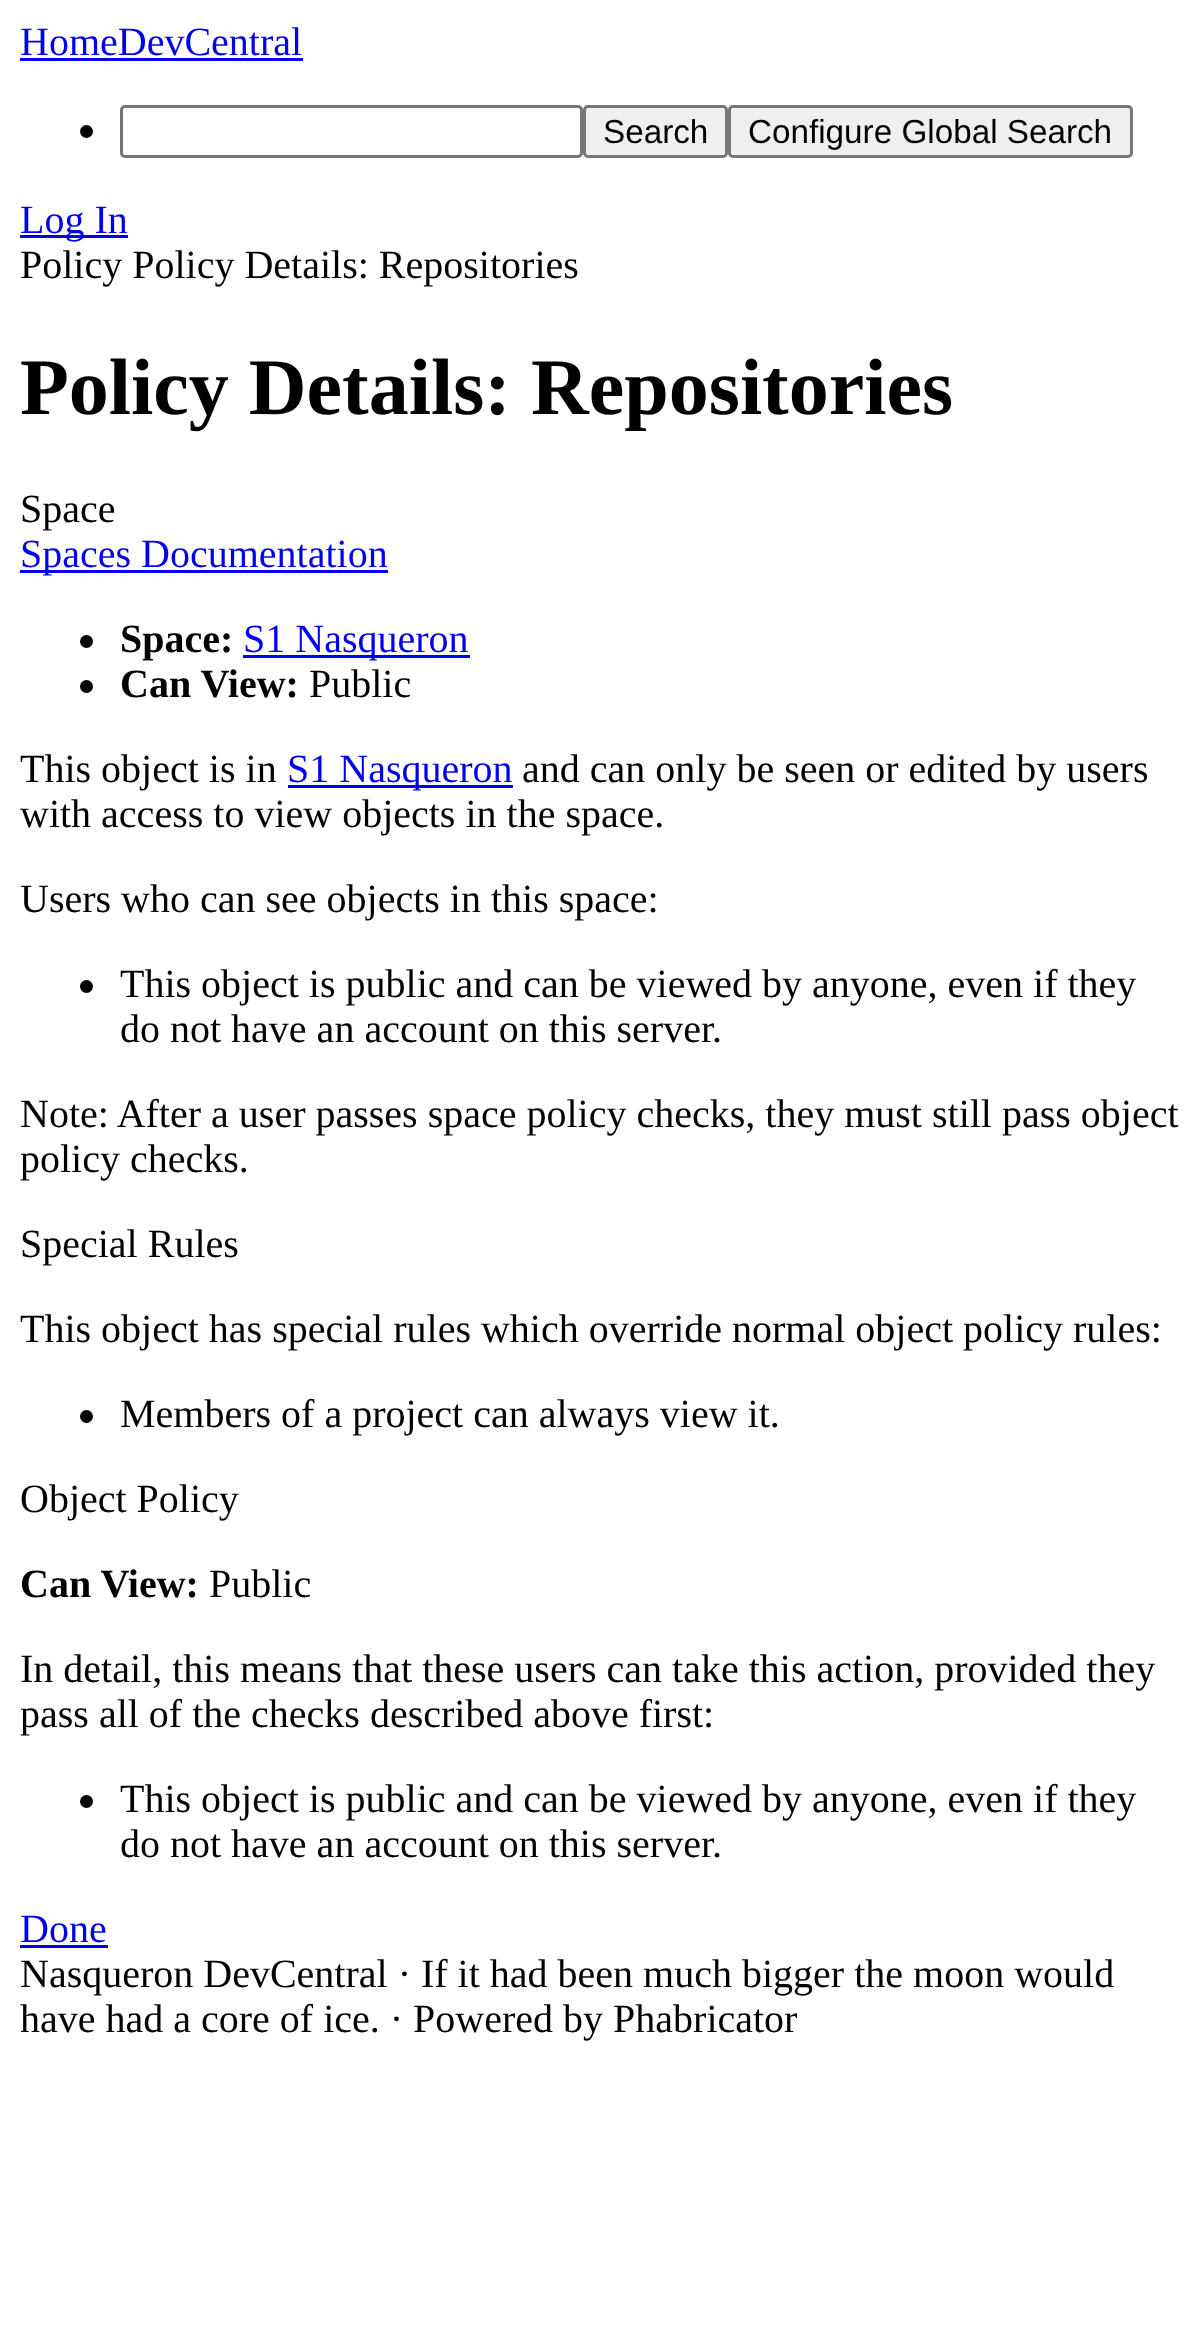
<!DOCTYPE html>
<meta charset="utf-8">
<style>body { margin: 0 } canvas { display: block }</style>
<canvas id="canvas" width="1204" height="2338"></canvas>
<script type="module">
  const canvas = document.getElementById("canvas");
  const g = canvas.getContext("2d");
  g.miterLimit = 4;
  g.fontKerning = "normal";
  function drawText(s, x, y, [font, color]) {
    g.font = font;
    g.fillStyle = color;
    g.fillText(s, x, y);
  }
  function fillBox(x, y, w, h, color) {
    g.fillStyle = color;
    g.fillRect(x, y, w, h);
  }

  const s1 = ["40px Liberation Serif", "#0000EE"];
  const s2 = ["33.25px Liberation Sans", "#000000"];
  const s3 = ["40px Liberation Serif", "#000000"];
  const s4 = ["bold 80px Liberation Serif", "#000000"];
  const s5 = ["bold 40px Liberation Serif", "#000000"];

  fillBox(0, 0, 1204, 2338, "#FFFFFF");
  drawText("HomeDevCentral", 20, 55, s1);
  fillBox(20, 58, 283, 3, "#0000EE");
  g.fillStyle = "#000000";
  g.beginPath();
  g.arc(86.5, 131.5, 6.5, 0, Math.PI * 2);
  g.fill();
  g.beginPath();
  g.roundRect(121.5, 106.5, 460, 50, 3.5);
  g.strokeStyle = "#767676";
  g.lineWidth = 3;
  g.stroke();
  g.fillStyle = "#EFEFEF";
  g.beginPath();
  g.roundRect(584.5, 106.5, 142, 50, 3.5);
  g.fill();
  g.stroke();
  drawText("Search", 603, 143, s2);
  g.fillStyle = "#EFEFEF";
  g.beginPath();
  g.roundRect(729.5, 106.5, 402, 50, 3.5);
  g.fill();
  g.stroke();
  drawText("Configure Global Search", 748, 143, s2);
  fillBox(20, 235, 108, 3, "#0000EE");
  drawText("Log In", 20, 233, s1);
  drawText("Policy Policy Details: Repositories", 20, 278, s3);
  drawText("Policy Details: Repositories", 20, 414, s4);
  drawText("Space", 20, 522, s3);
  fillBox(20, 570, 368, 3, "#0000EE");
  drawText("Spaces Documentation", 20, 567, s1);
  g.fillStyle = "#000000";
  g.beginPath();
  g.arc(86.5, 641.5, 6.5, 0, Math.PI * 2);
  g.fill();
  drawText("Space:", 120, 652, s5);
  fillBox(243, 655, 227, 3, "#0000EE");
  drawText("S1 Nasqueron", 243, 652, s1);
  g.fillStyle = "#000000";
  g.beginPath();
  g.arc(86.5, 686.5, 6.5, 0, Math.PI * 2);
  g.fill();
  drawText("Can View:", 120, 697, s5);
  drawText("Public", 309, 697, s3);
  drawText("This object is in", 20, 782, s3);
  fillBox(288, 785, 225, 3, "#0000EE");
  drawText("S1 Nasqueron", 287, 782, s1);
  drawText("and can only be seen or edited by users", 522, 782, s3);
  drawText("with access to view objects in the space.", 20, 827, s3);
  drawText("Users who can see objects in this space:", 20, 912, s3);
  g.beginPath();
  g.arc(86.5, 986.5, 6.5, 0, Math.PI * 2);
  g.fill();
  drawText("This object is public and can be viewed by anyone, even if they", 120, 997, s3);
  drawText("do not have an account on this server.", 120, 1042, s3);
  drawText("Note: After a user passes space policy checks, they must still pass object", 20, 1127, s3);
  drawText("policy checks.", 20, 1172, s3);
  drawText("Special Rules", 20, 1257, s3);
  drawText("This object has special rules which override normal object policy rules:", 20, 1342, s3);
  g.beginPath();
  g.arc(86.5, 1416.5, 6.5, 0, Math.PI * 2);
  g.fill();
  drawText("Members of a project can always view it.", 120, 1427, s3);
  drawText("Object Policy", 20, 1512, s3);
  drawText("Can View:", 20, 1597, s5);
  drawText("Public", 209, 1597, s3);
  drawText("In detail, this means that these users can take this action, provided they", 20, 1682, s3);
  drawText("pass all of the checks described above first:", 20, 1727, s3);
  g.beginPath();
  g.arc(86.5, 1801.5, 6.5, 0, Math.PI * 2);
  g.fill();
  drawText("This object is public and can be viewed by anyone, even if they", 120, 1812, s3);
  drawText("do not have an account on this server.", 120, 1857, s3);
  drawText("Done", 20, 1942, s1);
  fillBox(20, 1945, 88, 3, "#0000EE");
  drawText("Nasqueron DevCentral · If it had been much bigger the moon would", 20, 1987, s3);
  drawText("have had a core of ice. · Powered by Phabricator", 20, 2032, s3);
</script>
